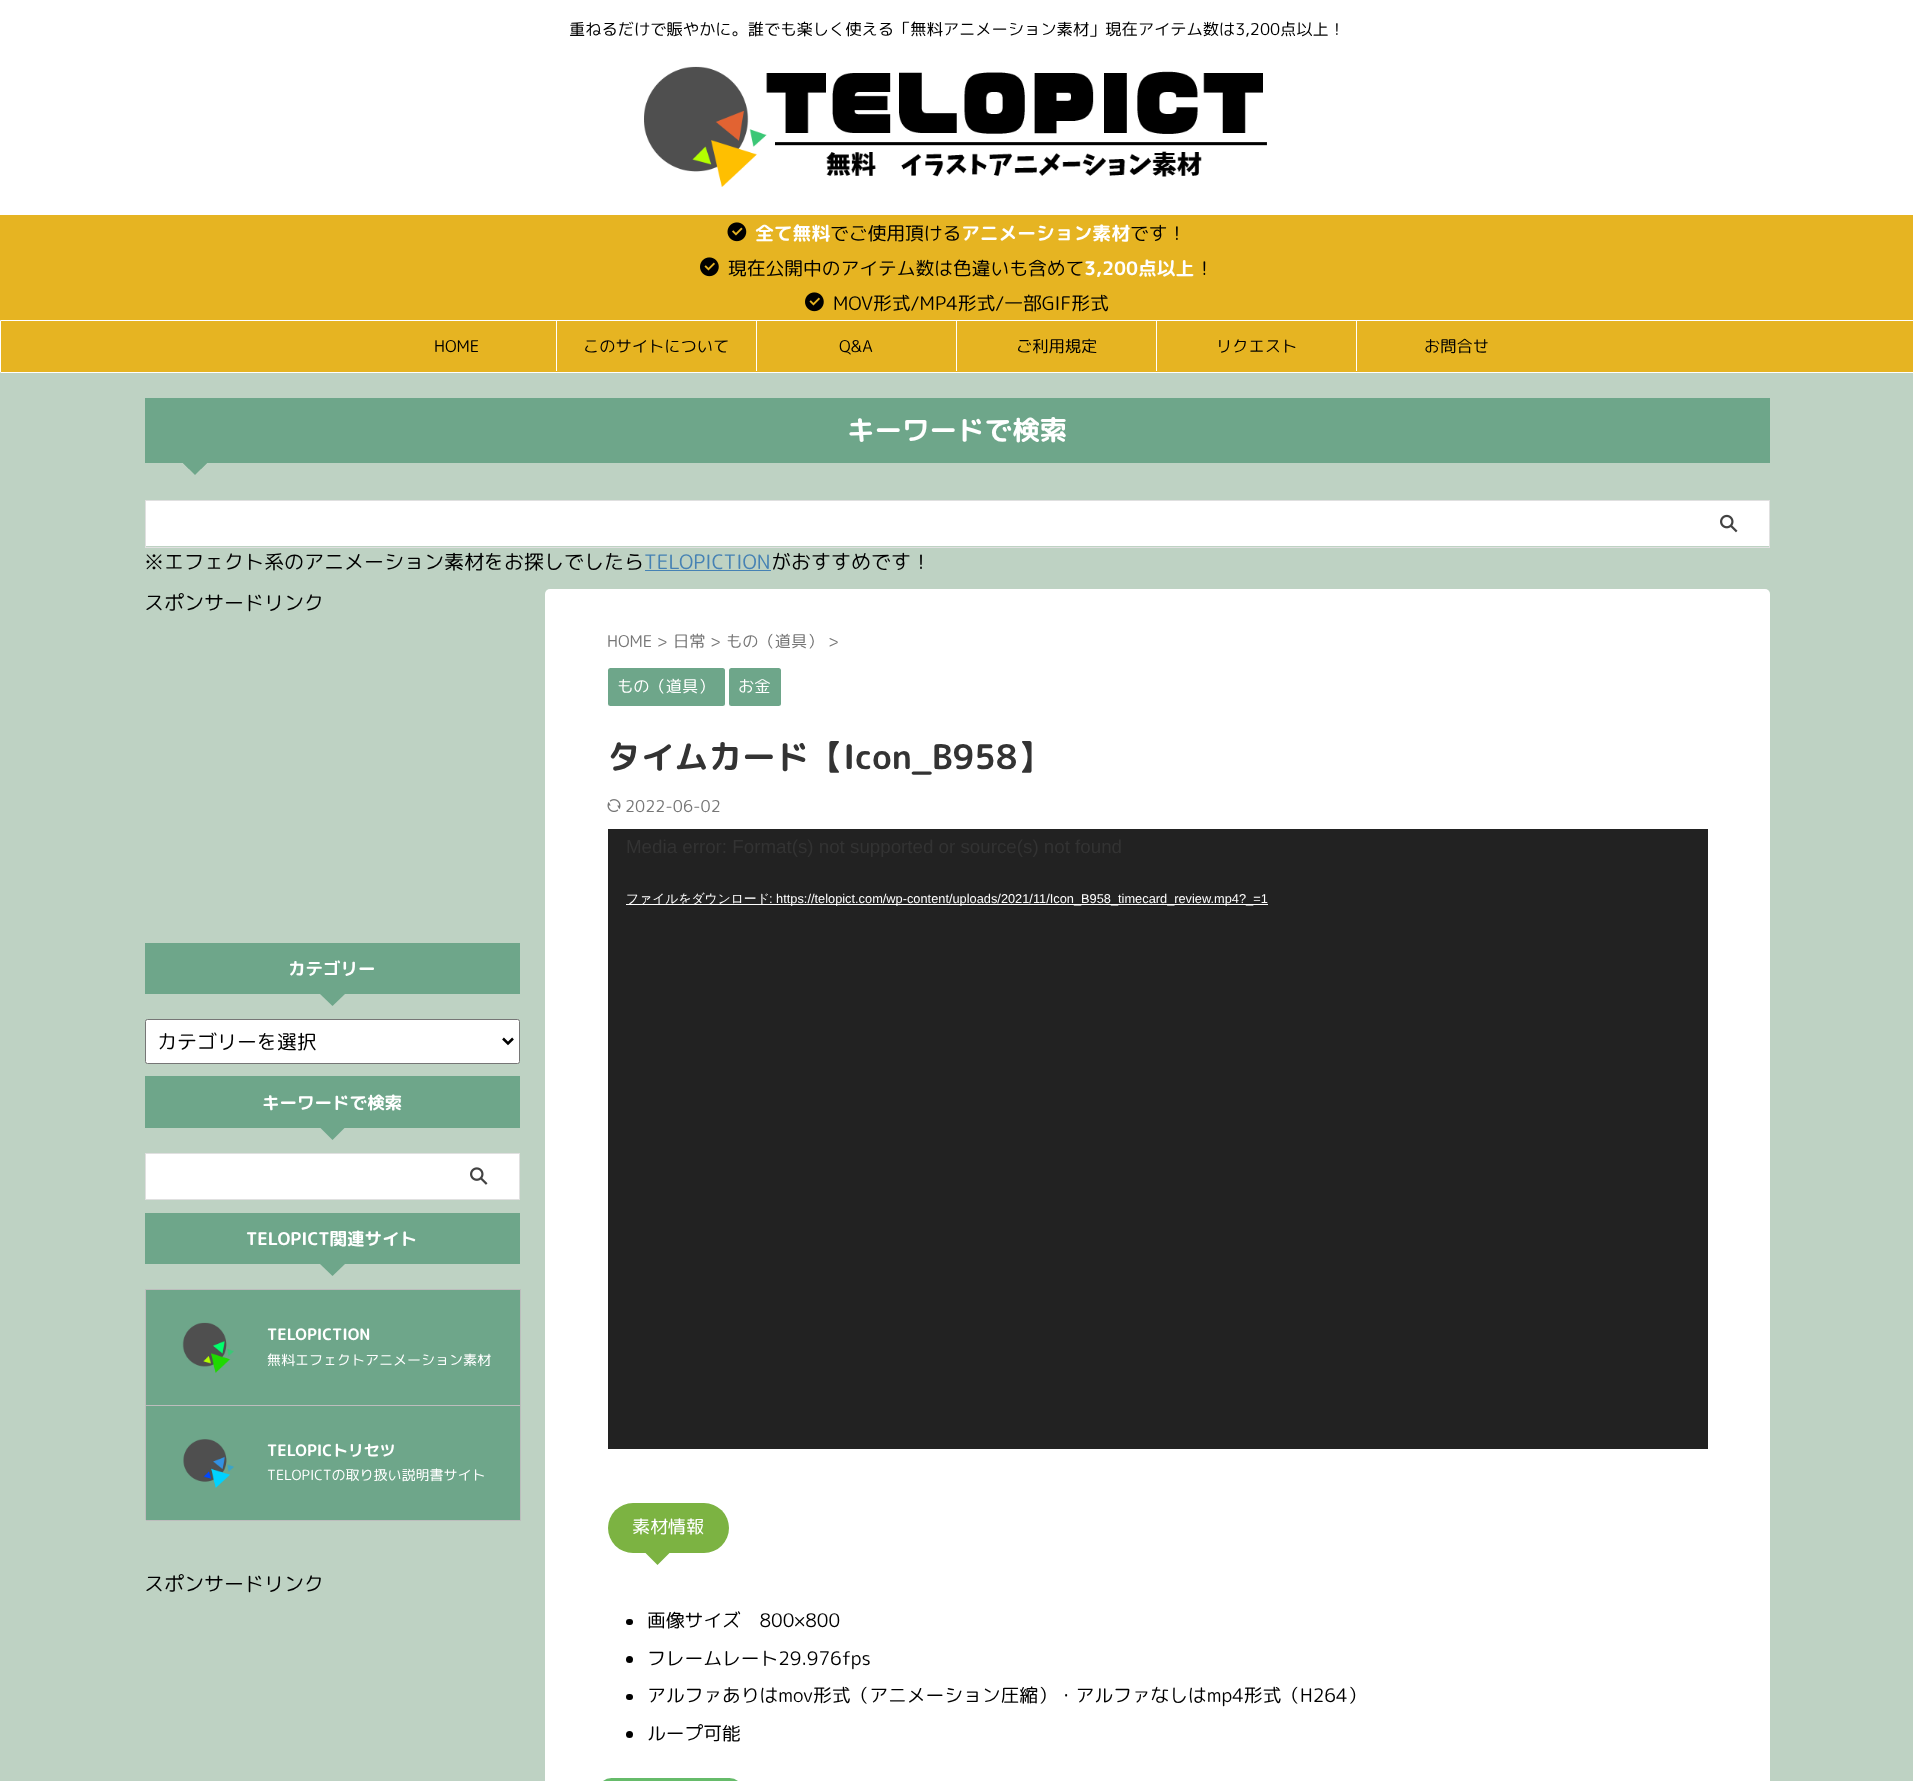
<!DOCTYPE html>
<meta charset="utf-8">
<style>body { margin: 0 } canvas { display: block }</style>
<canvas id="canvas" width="1913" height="1781"></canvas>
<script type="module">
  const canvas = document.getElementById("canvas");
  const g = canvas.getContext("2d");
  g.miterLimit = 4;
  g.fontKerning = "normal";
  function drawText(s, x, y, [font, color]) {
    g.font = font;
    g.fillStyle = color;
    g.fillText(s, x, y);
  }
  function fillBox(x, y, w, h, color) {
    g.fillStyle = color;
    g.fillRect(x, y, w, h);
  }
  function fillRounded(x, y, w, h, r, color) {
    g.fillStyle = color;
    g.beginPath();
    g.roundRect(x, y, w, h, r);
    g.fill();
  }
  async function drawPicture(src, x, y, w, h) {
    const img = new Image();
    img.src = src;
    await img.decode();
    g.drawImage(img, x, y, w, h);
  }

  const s1 = ["16.25px 'Rounded Mplus 1c'", "#000000"];
  const s2 = ["bold 18.75px 'Rounded Mplus 1c Bold'", "#FFFFFF"];
  const s3 = ["18.75px 'Rounded Mplus 1c'", "#000000"];
  const s4 = ["bold 27.5px 'Rounded Mplus 1c Bold'", "#FFFFFF"];
  const s5 = ["20px 'Rounded Mplus 1c'", "#000000"];
  const s6 = ["20px 'Rounded Mplus 1c'", "#4682B4"];
  const s7 = ["bold 17.5px 'Rounded Mplus 1c Bold'", "#FFFFFF"];
  const s8 = ["bold 15.75px 'Rounded Mplus 1c Bold'", "#FFFFFF"];
  const s9 = ["14px 'Rounded Mplus 1c'", "#FFFFFF"];
  const s10 = ["16.25px 'Rounded Mplus 1c'", "#777777"];
  const s11 = ["16.25px 'Rounded Mplus 1c'", "#FFFFFF"];
  const s12 = ["bold 33.75px 'Rounded Mplus 1c Bold'", "#333333"];
  const s13 = ["18.75px Liberation Sans", "#333333"];
  const s14 = ["500 12.8px WenQuanYi Zen Hei", "#FFFFFF"];
  const s15 = ["12.8px Liberation Sans", "#FFFFFF"];
  const s16 = ["18px 'Rounded Mplus 1c'", "#FFFFFF"];

  fillBox(0, 0, 1913, 1781, "#BED2C3");
  fillBox(0, 0, 1913, 215, "#FFFFFF");
  drawText("重ねるだけで賑やかに。誰でも楽しく使える「無料アニメーション素材」現在アイテム数は3,200点以上！", 569, 35, s1);
  await drawPicture("pic1.png", 644, 66, 623, 121);
  fillBox(0, 215, 1913, 105, "#E6B422");
  await drawPicture("pic2.png", 727, 222, 20, 20);
  drawText("全て無料", 755, 240, s2);
  drawText("でご使用頂ける", 830, 240, s3);
  drawText("アニメーション素材", 961, 240, s2);
  drawText("です！", 1130, 240, s3);
  await drawPicture("pic3.png", 700, 257, 19, 20);
  drawText("現在公開中のアイテム数は色違いも含めて", 728, 275, s3);
  drawText("3,200点以上", 1084, 275, s2);
  drawText("！", 1195, 275, s3);
  await drawPicture("pic3.png", 805, 292, 19, 20);
  drawText("MOV形式/MP4形式/一部GIF形式", 833, 310, s3);
  g.fillStyle = "#E6B422";
  g.beginPath();
  g.roundRect(0.5, 320.5, 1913, 52, 0.5);
  g.fill();
  g.strokeStyle = "#FFFFFF";
  g.stroke();
  fillBox(556, 321, 1, 50, "#FFFFFF");
  drawText("HOME", 434, 352, s1);
  fillBox(756, 321, 1, 50, "#FFFFFF");
  drawText("このサイトについて", 583, 352, s1);
  fillBox(956, 321, 1, 50, "#FFFFFF");
  drawText("Q&A", 839, 352, s1);
  fillBox(1156, 321, 1, 50, "#FFFFFF");
  drawText("ご利用規定", 1016, 352, s1);
  fillBox(1356, 321, 1, 50, "#FFFFFF");
  drawText("リクエスト", 1216, 352, s1);
  drawText("お問合せ", 1424, 352, s1);
  fillBox(145, 398, 1625, 65, "#6EA68A");
  drawText("キーワードで検索", 847, 440, s4);
  g.fillStyle = "#6EA68A";
  g.beginPath();
  g.moveTo(182.5, 462.5);
  g.lineTo(207.5, 462.5);
  g.lineTo(195, 475);
  g.closePath();
  g.fill();
  g.beginPath();
  g.moveTo(185, 462.5);
  g.lineTo(183, 463);
  g.lineTo(189, 469);
  g.lineTo(201, 469);
  g.lineTo(207, 463);
  g.lineTo(205, 462.5);
  g.closePath();
  g.fill();
  g.strokeStyle = "#E0E0E0";
  g.strokeRect(145.5, 500.5, 1624, 47);
  fillBox(146, 501, 1623, 45, "#FFFFFF");
  await drawPicture("pic4.png", 1720, 514, 18, 19);
  drawText("※エフェクト系のアニメーション素材をお探しでしたら", 144, 569, s5);
  drawText("TELOPICTION", 644, 569, s6);
  fillBox(645, 570, 126, 1, "#4682B4");
  drawText("がおすすめです！", 771, 569, s5);
  drawText("スポンサードリンク", 144, 610, s5);
  fillBox(145, 943, 375, 51, "#6EA68A");
  drawText("カテゴリー", 288, 975, s7);
  g.fillStyle = "#6EA68A";
  g.beginPath();
  g.moveTo(320, 994);
  g.lineTo(345, 994);
  g.lineTo(332.5, 1006);
  g.closePath();
  g.fill();
  g.fillStyle = "#FFFFFF";
  g.beginPath();
  g.roundRect(145.5, 1019.5, 374, 44, 2);
  g.fill();
  g.strokeStyle = "#767676";
  g.stroke();
  g.beginPath();
  g.moveTo(503, 1038.5);
  g.lineTo(508, 1043.5);
  g.lineTo(513, 1038.5);
  g.strokeStyle = "#000000";
  g.lineWidth = 2.5;
  g.stroke();
  drawText("カテゴリーを選択", 157, 1049, s5);
  fillBox(145, 1076, 375, 52, "#6EA68A");
  drawText("キーワードで検索", 262, 1109, s7);
  g.fillStyle = "#6EA68A";
  g.beginPath();
  g.moveTo(320, 1127.5);
  g.lineTo(345, 1127.5);
  g.lineTo(332.5, 1140);
  g.closePath();
  g.fill();
  g.strokeStyle = "#E0E0E0";
  g.lineWidth = 1;
  g.strokeRect(145.5, 1153.5, 374, 46);
  fillBox(146, 1154, 373, 45, "#FFFFFF");
  await drawPicture("pic5.png", 470, 1167, 18, 18);
  fillBox(145, 1213, 375, 51, "#6EA68A");
  drawText("TELOPICT関連サイト", 246, 1245, s7);
  g.fillStyle = "#6EA68A";
  g.beginPath();
  g.moveTo(320, 1264);
  g.lineTo(345, 1264);
  g.lineTo(332.5, 1276);
  g.closePath();
  g.fill();
  fillBox(520, 1289, 1, 1, "#BDBDBD");
  g.beginPath();
  g.moveTo(146, 1405);
  g.lineTo(146, 1406);
  g.lineTo(521, 1406);
  g.lineTo(521, 1290);
  g.lineTo(520, 1290);
  g.lineTo(520, 1405);
  g.closePath();
  g.fill();
  fillBox(146, 1290, 374, 115, "#6EA68A");
  g.save();
  g.beginPath();
  g.rect(145, 1289, 375, 116);
  g.clip();
  g.fillStyle = "#BDBDBD";
  g.beginPath();
  g.moveTo(21, 1165);
  g.lineTo(644, 1165);
  g.lineTo(644, 1529);
  g.lineTo(21, 1529);
  g.closePath();
  g.moveTo(146, 1290);
  g.lineTo(521, 1290);
  g.lineTo(521, 1406);
  g.lineTo(146, 1406);
  g.closePath();
  g.fill("evenodd");
  g.restore();
  await drawPicture("pic6.png", 182, 1322, 52, 51);
  drawText("TELOPICTION", 267, 1340, s8);
  drawText("無料エフェクトアニメーション素材", 267, 1365, s9);
  g.fillStyle = "#BDBDBD";
  g.beginPath();
  g.moveTo(146, 1520);
  g.lineTo(146, 1521);
  g.lineTo(521, 1521);
  g.lineTo(521, 1406);
  g.lineTo(520, 1406);
  g.lineTo(520, 1520);
  g.closePath();
  g.fill();
  fillBox(146, 1406, 374, 114, "#6EA68A");
  g.save();
  g.beginPath();
  g.rect(145, 1405, 375, 115);
  g.clip();
  g.fillStyle = "#BDBDBD";
  g.beginPath();
  g.moveTo(21, 1281);
  g.lineTo(644, 1281);
  g.lineTo(644, 1644);
  g.lineTo(21, 1644);
  g.closePath();
  g.moveTo(146, 1406);
  g.lineTo(521, 1406);
  g.lineTo(521, 1521);
  g.lineTo(146, 1521);
  g.closePath();
  g.fill("evenodd");
  g.restore();
  await drawPicture("pic7.png", 183, 1439, 51, 49);
  drawText("TELOPICトリセツ", 267, 1456, s8);
  drawText("TELOPICTの取り扱い説明書サイト", 267, 1480, s9);
  drawText("スポンサードリンク", 144, 1591, s5);
  fillRounded(545, 589, 1225, 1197, 5, "#FFFFFF");
  drawText("HOME >", 607, 647, s10);
  drawText("日常 >", 673, 647, s10);
  drawText("もの（道具） >", 726, 647, s10);
  fillRounded(608, 668, 117, 38, 2.5, "#6EA68A");
  drawText("もの（道具）", 617, 692, s11);
  fillRounded(729, 668, 52, 38, 2.5, "#6EA68A");
  drawText("お金", 738, 692, s11);
  drawText("タイムカード【Icon_B958】", 607, 769, s12);
  await drawPicture("pic8.png", 607, 799, 14, 13);
  drawText("2022-06-02", 625, 812, s10);
  fillBox(608, 829, 1100, 620, "#222222");
  drawText("Media error: Format(s) not supported or source(s) not found", 626, 853, s13);
  fillBox(626, 904, 642, 1, "#FFFFFF");
  drawText("ファイルをダウンロード", 626, 903, s14);
  drawText(": https://telopict.com/wp-content/uploads/2021/11/Icon_B958_timecard_review.mp4?_=1", 769, 903, s15);
  fillRounded(608, 1503, 121, 50, 25, "#7CB342");
  drawText("素材情報", 632, 1533, s16);
  g.fillStyle = "#7CB342";
  g.beginPath();
  g.moveTo(645, 1552.5);
  g.lineTo(670, 1552.5);
  g.lineTo(657.5, 1565);
  g.closePath();
  g.fill();
  fillRounded(626, 1619, 7, 6, 3, "#000000");
  drawText("画像サイズ　800×800", 647, 1627, s3);
  g.beginPath();
  g.arc(629.5, 1659.5, 3.5, 0, Math.PI * 2);
  g.fill();
  drawText("フレームレート29.976fps", 647, 1665, s3);
  fillRounded(626, 1694, 7, 6, 3, "#000000");
  drawText("アルファありはmov形式（アニメーション圧縮）・アルファなしはmp4形式（H264）", 647, 1702, s3);
  g.beginPath();
  g.arc(629.5, 1734.5, 3.5, 0, Math.PI * 2);
  g.fill();
  drawText("ループ可能", 647, 1740, s3);
  fillRounded(598, 1778, 145, 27, 23.5, "#66BB6A");
</script>
